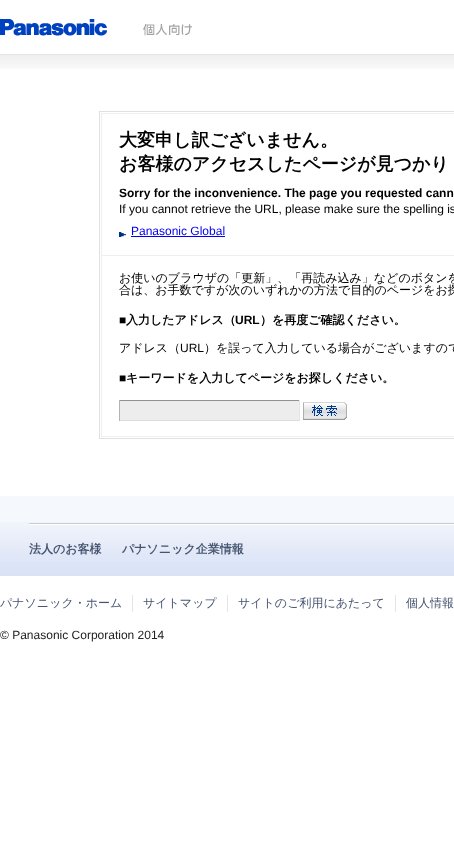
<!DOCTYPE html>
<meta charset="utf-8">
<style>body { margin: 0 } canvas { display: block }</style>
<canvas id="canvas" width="454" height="865"></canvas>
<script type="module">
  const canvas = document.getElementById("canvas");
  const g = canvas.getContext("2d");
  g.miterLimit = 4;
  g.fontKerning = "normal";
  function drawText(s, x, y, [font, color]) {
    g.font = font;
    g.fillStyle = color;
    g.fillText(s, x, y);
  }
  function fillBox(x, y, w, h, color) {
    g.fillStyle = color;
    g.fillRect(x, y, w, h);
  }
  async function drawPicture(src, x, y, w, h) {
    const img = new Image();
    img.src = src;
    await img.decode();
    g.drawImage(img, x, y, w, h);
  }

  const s1 = ["bold 18px WenQuanYi Zen Hei", "#000000"];
  const s2 = ["bold 12px Liberation Sans", "#000000"];
  const s3 = ["12px Liberation Sans", "#000000"];
  const s4 = ["12px Liberation Sans", "#0000EE"];
  const s5 = ["500 12px WenQuanYi Zen Hei", "#000000"];
  const s6 = ["bold 12px WenQuanYi Zen Hei", "#000000"];
  const s7 = ["bold 12px WenQuanYi Zen Hei", "#455470"];
  const s8 = ["500 12px WenQuanYi Zen Hei", "#455470"];
  const s9 = ["12px Liberation Sans", "#222222"];

  fillBox(0, 0, 454, 865, "#FFFFFF");
  await drawPicture("pic1.png", 0, 19, 107, 17);
  await drawPicture("pic2.png", 143, 24, 49, 12);
  await drawPicture("pic3.png", 0, 55, 454, 14);
  fillBox(0, 54, 454, 1, "#E5E5E5");
  g.strokeStyle = "#E0E0E0";
  g.strokeRect(99.5, 111.5, 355, 327);
  g.strokeStyle = "#EFEFEF";
  g.strokeRect(101.5, 113.5, 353, 323);
  fillBox(102, 255, 352, 1, "#EFEFEF");
  drawText("大変申し訳ございません。", 119, 146, s1);
  drawText("お客様のアクセスしたページが見つかり", 119, 170, s1);
  drawText("Sorry for the inconvenience. The page you requested cann", 119, 197, s2);
  drawText("If you cannot retrieve the URL, please make sure the spelling is", 119, 213, s3);
  await drawPicture("pic4.png", 119, 232, 7, 5);
  drawText("Panasonic Global", 131, 235, s4);
  fillBox(131, 236, 94, 1, "#0000EE");
  drawText("お使いのブラウザの「更新」、「再読み込み」などのボタンを", 119, 282, s5);
  drawText("合は、お手数ですが次のいずれかの方法で目的のページをお探", 119, 294, s5);
  drawText("■", 119, 324, s2);
  drawText("入力したアドレス（", 126, 324, s6);
  drawText("URL", 235, 324, s2);
  drawText("）を再度ご確認ください。", 260, 324, s6);
  drawText("アドレス（", 119, 352, s5);
  drawText("URL", 180, 352, s3);
  drawText("）を誤って入力している場合がございますので", 204, 352, s5);
  drawText("■", 119, 382, s2);
  drawText("キーワードを入力してページをお探しください。", 126, 382, s6);
  fillBox(120, 401, 179, 19, "#EDEDED");
  fillBox(119, 400, 181, 1, "#929292");
  fillBox(299, 400, 1, 21, "#E5E5E5");
  fillBox(119, 420, 181, 1, "#DDDDDD");
  fillBox(119, 400, 1, 21, "#B3B3B3");
  await drawPicture("pic5.png", 303, 402, 44, 18);
  fillBox(0, 496, 454, 26, "#F5F8FD");
  await drawPicture("pic6.png", 0, 522, 454, 54);
  fillBox(29, 523, 425, 1, "#CCCCCC");
  fillBox(29, 524, 425, 1, "#FFFFFF");
  drawText("法人のお客様", 29, 553, s7);
  drawText("パナソニック企業情報", 122, 553, s7);
  drawText("パナソニック・ホーム", 0, 607, s8);
  fillBox(132, 595, 1, 17, "#E5E5E5");
  drawText("サイトマップ", 143, 607, s8);
  fillBox(227, 595, 1, 17, "#E5E5E5");
  drawText("サイトのご利用にあたって", 238, 607, s8);
  fillBox(395, 595, 1, 17, "#E5E5E5");
  drawText("個人情報", 406, 607, s8);
  drawText("© Panasonic Corporation 2014", 0, 639, s9);
</script>
